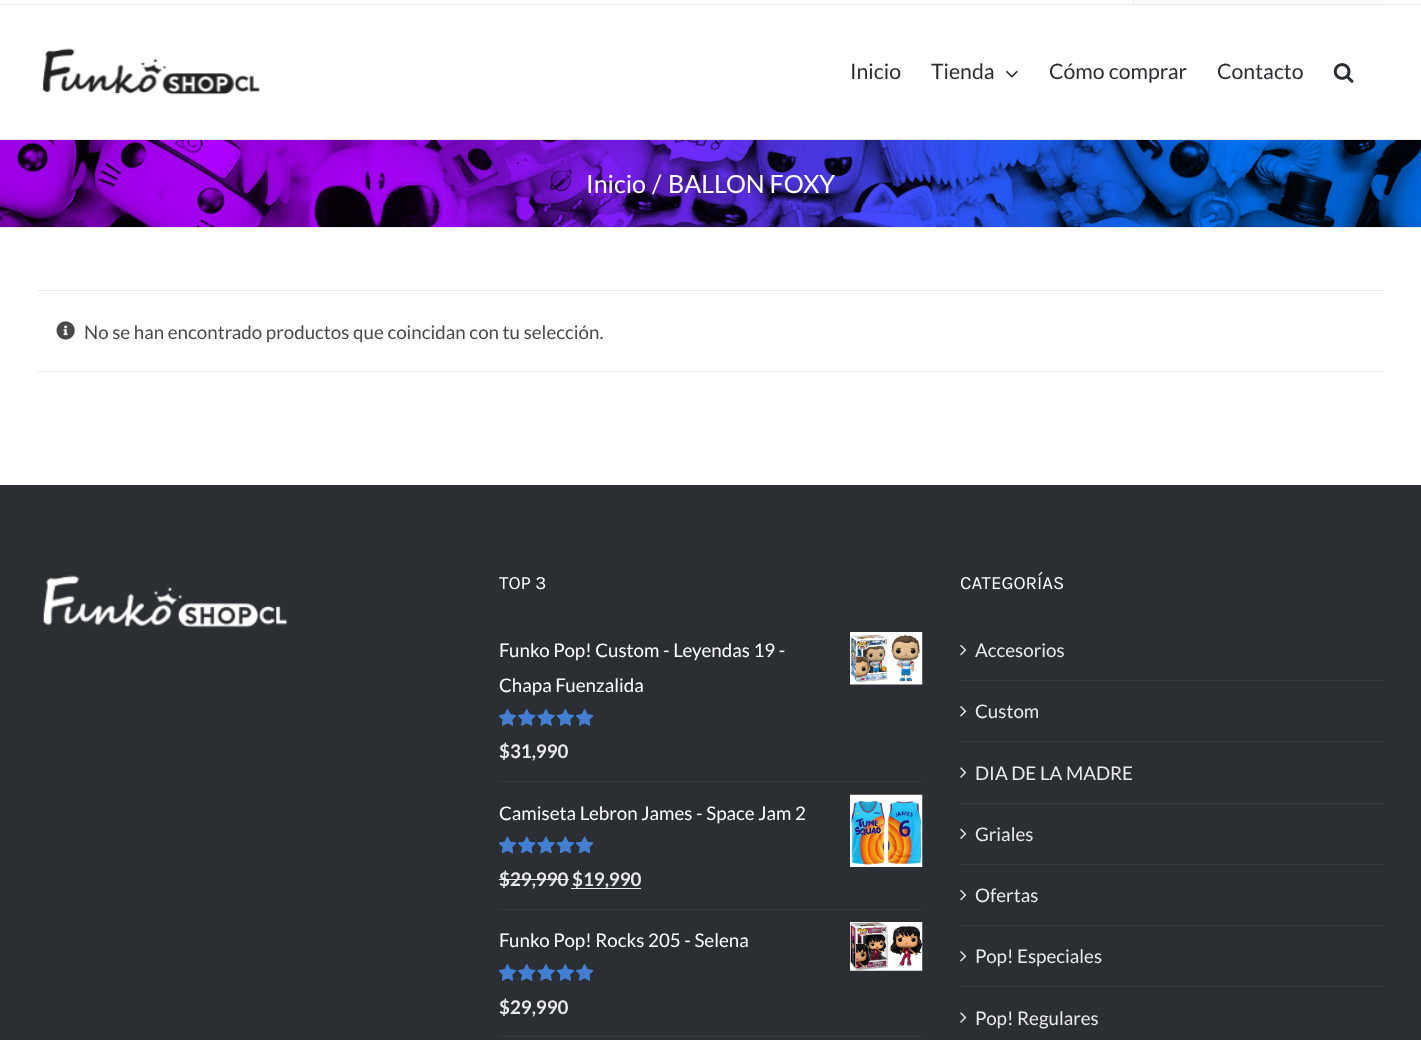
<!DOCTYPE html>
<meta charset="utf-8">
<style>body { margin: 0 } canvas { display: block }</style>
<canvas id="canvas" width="1421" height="1040"></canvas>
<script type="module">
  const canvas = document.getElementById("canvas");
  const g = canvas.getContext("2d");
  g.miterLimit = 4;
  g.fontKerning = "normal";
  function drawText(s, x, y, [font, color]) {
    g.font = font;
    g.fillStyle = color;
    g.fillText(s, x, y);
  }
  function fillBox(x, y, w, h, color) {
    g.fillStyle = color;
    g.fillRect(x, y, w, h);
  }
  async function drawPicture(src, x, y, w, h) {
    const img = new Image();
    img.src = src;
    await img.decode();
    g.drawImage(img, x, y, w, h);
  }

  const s1 = ["21.25px Lato", "#2B2E32"];
  const s2 = ["25px Lato", "#FFFFFF"];
  const s3 = ["18.75px Lato", "#494949"];
  const s4 = ["18.75px Karla", "#FFFFFF"];
  const s5 = ["18.75px Lato", "#FFFFFF"];
  const s6 = ["bold 18.75px Lato", "#EAEAEA"];
  const s7 = ["18.75px Lato", "#EAEAEA"];

  fillBox(0, 0, 1421, 1040, "#FFFFFF");
  fillBox(0, 4, 1421, 1, "#EAEAEA");
  fillBox(1133, 0, 1, 4, "#EAEAEA");
  fillBox(1134, 0, 250, 4, "#FAFAFA");
  fillBox(0, 139, 1421, 1, "#EAEAEA");
  await drawPicture("pic1.png", 42, 48, 218, 47);
  drawText("Inicio", 850, 79, s1);
  drawText("Tienda", 931, 79, s1);
  await drawPicture("pic2.png", 1006, 70, 12, 8);
  drawText("Cómo comprar", 1049, 79, s1);
  drawText("Contacto", 1217, 79, s1);
  await drawPicture("pic3.png", 1333, 63, 21, 20);
  fillBox(0, 227, 1421, 1, "#EAEAEA");
  await drawPicture("pic4.png", 0, 140, 1421, 87);
  drawText("Inicio", 586, 193, s2);
  drawText("/", 652, 193, s2);
  drawText("BALLON FOXY", 668, 193, s2);
  fillBox(38, 290, 1346, 1, "#EAEAEA");
  fillBox(38, 371, 1346, 1, "#EAEAEA");
  await drawPicture("pic5.png", 56, 321, 19, 19);
  drawText("No se han encontrado productos que coincidan con tu selección.", 84, 339, s3);
  fillBox(0, 485, 1421, 555, "#2B2E32");
  await drawPicture("pic6.png", 43, 575, 245, 53);
  drawText("TOP 3", 499, 589, s4);
  fillBox(499, 781, 424, 1, "#35383C");
  drawText("Funko Pop! Custom - Leyendas 19 -", 499, 657, s5);
  await drawPicture("pic7.png", 850, 632, 73, 53);
  drawText("Chapa Fuenzalida", 499, 692, s5);
  await drawPicture("pic8.png", 499, 709, 95, 17);
  await drawPicture("pic9.png", 499, 709, 95, 17);
  drawText("$31,990", 499, 758, s6);
  fillBox(499, 909, 424, 1, "#35383C");
  drawText("Camiseta Lebron James - Space Jam 2", 499, 820, s5);
  await drawPicture("pic10.png", 850, 794, 73, 73);
  await drawPicture("pic11.png", 499, 836, 95, 18);
  await drawPicture("pic12.png", 499, 836, 95, 18);
  drawText("$29,990", 499, 886, s6);
  fillBox(499, 879, 70, 1, "#EAEAEA");
  fillBox(571, 888, 70, 1, "#EAEAEA");
  drawText("$19,990", 572, 886, s6);
  fillBox(499, 1036, 424, 1, "#35383C");
  drawText("Funko Pop! Rocks 205 - Selena", 499, 947, s5);
  await drawPicture("pic13.png", 850, 922, 73, 49);
  await drawPicture("pic8.png", 499, 964, 95, 17);
  await drawPicture("pic9.png", 499, 964, 95, 17);
  drawText("$29,990", 499, 1014, s6);
  drawText("CATEGORÍAS", 960, 589, s4);
  fillBox(960, 680, 424, 1, "#35383C");
  await drawPicture("pic14.png", 960, 644, 7, 12);
  drawText("Accesorios", 975, 657, s7);
  fillBox(960, 741, 424, 1, "#35383C");
  await drawPicture("pic15.png", 960, 706, 7, 11);
  drawText("Custom", 975, 718, s7);
  fillBox(960, 803, 424, 1, "#35383C");
  await drawPicture("pic16.png", 960, 767, 7, 11);
  drawText("DIA DE LA MADRE", 975, 780, s7);
  fillBox(960, 864, 424, 1, "#35383C");
  await drawPicture("pic17.png", 960, 828, 7, 11);
  drawText("Griales", 975, 841, s7);
  fillBox(960, 925, 424, 1, "#35383C");
  await drawPicture("pic14.png", 960, 889, 7, 12);
  drawText("Ofertas", 975, 902, s7);
  fillBox(960, 986, 424, 1, "#35383C");
  await drawPicture("pic15.png", 960, 951, 7, 11);
  drawText("Pop! Especiales", 975, 963, s7);
  await drawPicture("pic16.png", 960, 1012, 7, 11);
  drawText("Pop! Regulares", 975, 1025, s7);
</script>
